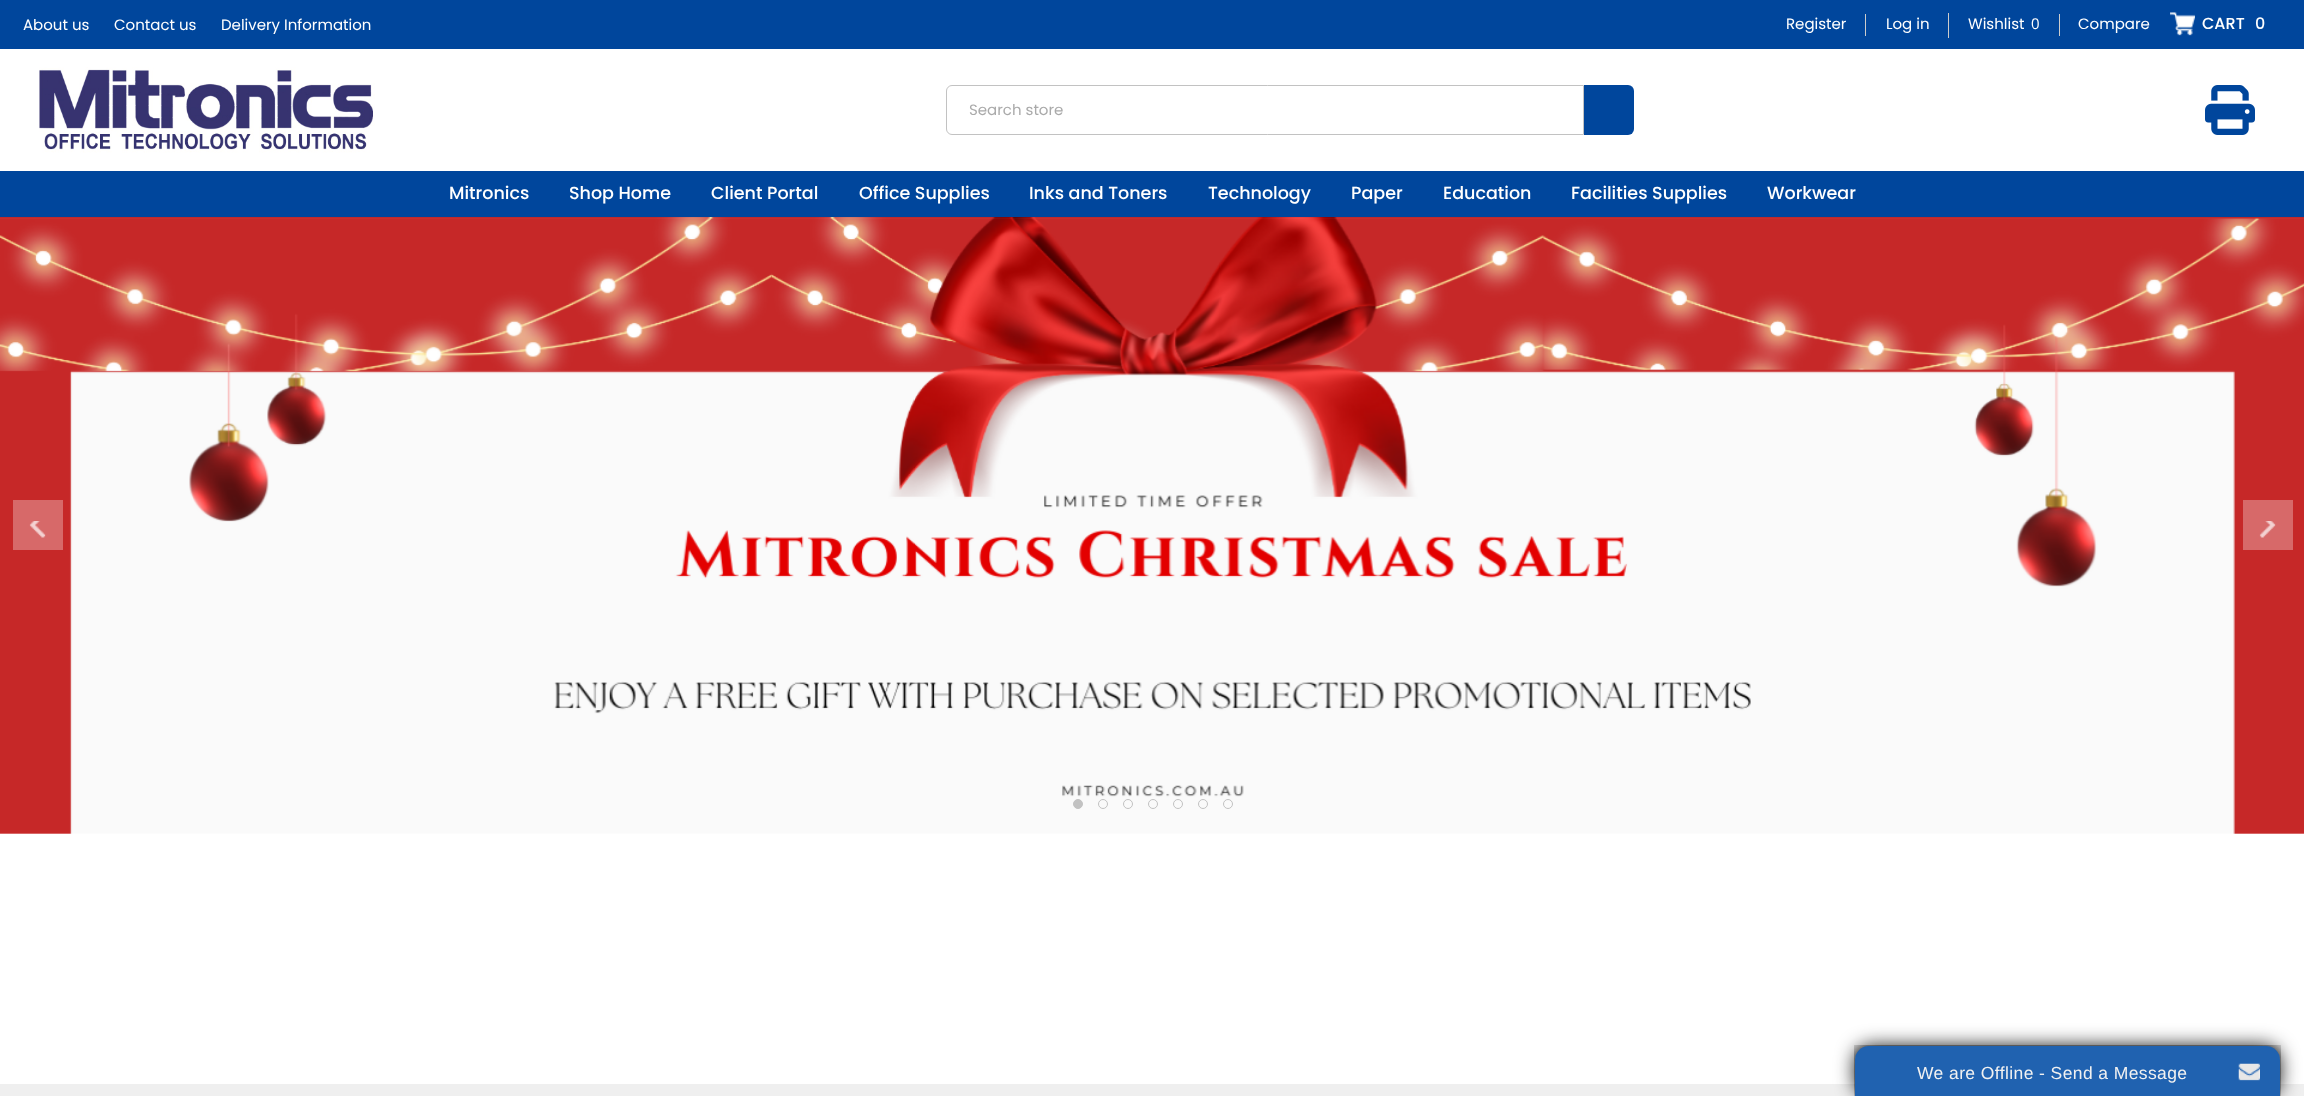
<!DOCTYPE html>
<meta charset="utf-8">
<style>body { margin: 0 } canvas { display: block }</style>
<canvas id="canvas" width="2304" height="1096"></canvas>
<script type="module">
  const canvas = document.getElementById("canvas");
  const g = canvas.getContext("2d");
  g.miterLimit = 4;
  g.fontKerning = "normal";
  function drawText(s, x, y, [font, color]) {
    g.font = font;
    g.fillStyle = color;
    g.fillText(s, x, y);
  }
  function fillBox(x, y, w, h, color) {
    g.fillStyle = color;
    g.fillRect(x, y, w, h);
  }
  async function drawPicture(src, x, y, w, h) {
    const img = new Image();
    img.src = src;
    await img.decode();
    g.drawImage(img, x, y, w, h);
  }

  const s1 = ["15px Poppins", "#FFFFFF"];
  const s2 = ["15px Open Sans", "#FFFFFF"];
  const s3 = ["500 16px Poppins", "#FFFFFF"];
  const s4 = ["15px Poppins", "#AAAAAA"];
  const s5 = ["500 17.5px Poppins", "#FFFFFF"];
  const s6 = ["17.5px Liberation Sans", "#F1F1F1"];

  fillBox(0, 0, 2304, 1096, "#FFFFFF");
  fillBox(0, 0, 2304, 49, "#00469C");
  drawText("About us", 23, 30, s1);
  drawText("Contact us", 114, 30, s1);
  drawText("Delivery Information", 221, 30, s1);
  drawText("Register", 1786, 29, s1);
  fillBox(1865, 14, 1, 22, "#CCCCCC");
  drawText("Log in", 1886, 29, s1);
  fillBox(1948, 13, 1, 25, "#CCCCCC");
  drawText("Wishlist", 1968, 29, s1);
  drawText("0", 2031, 29, s2);
  fillBox(2059, 14, 1, 22, "#CCCCCC");
  drawText("Compare", 2078, 29, s1);
  await drawPicture("pic1.png", 2170, 12, 25, 24);
  drawText("CART", 2202, 29, s3);
  drawText("0", 2255, 29, s3);
  await drawPicture("pic2.png", 39, 67, 336, 86);
  g.beginPath();
  g.roundRect(946.5, 85.5, 637, 49, [5.5, 0, 0, 5.5]);
  g.strokeStyle = "#C2C2C2";
  g.stroke();
  drawText("Search store", 969, 115, s4);
  g.fillStyle = "#00469C";
  g.beginPath();
  g.roundRect(1584, 85, 50, 50, [0, 6, 6, 0]);
  g.fill();
  await drawPicture("pic3.png", 2205, 85, 50, 50);
  fillBox(0, 171, 2304, 47, "#00469C");
  drawText("Mitronics", 449, 199, s5);
  drawText("Shop Home", 569, 199, s5);
  drawText("Client Portal", 711, 199, s5);
  drawText("Office Supplies", 859, 199, s5);
  drawText("Inks and Toners", 1029, 199, s5);
  drawText("Technology", 1208, 199, s5);
  drawText("Paper", 1351, 199, s5);
  drawText("Education", 1443, 199, s5);
  drawText("Facilities Supplies", 1571, 199, s5);
  drawText("Workwear", 1767, 199, s5);
  await drawPicture("pic4.png", 0, 217, 2304, 617);
  fillBox(13, 500, 50, 50, "#D76969");
  await drawPicture("pic5.png", 29, 521, 17, 17);
  fillBox(2243, 500, 50, 50, "#D76969");
  await drawPicture("pic6.png", 2259, 521, 17, 17);
  g.fillStyle = "#C2C2C2";
  g.beginPath();
  g.arc(1078, 804, 4.5, 0, Math.PI * 2);
  g.fill();
  g.stroke();
  g.beginPath();
  g.arc(1103, 804, 4.5, 0, Math.PI * 2);
  g.stroke();
  g.beginPath();
  g.arc(1128, 804, 4.5, 0, Math.PI * 2);
  g.stroke();
  g.beginPath();
  g.arc(1153, 804, 4.5, 0, Math.PI * 2);
  g.stroke();
  g.beginPath();
  g.arc(1178, 804, 4.5, 0, Math.PI * 2);
  g.stroke();
  g.beginPath();
  g.arc(1203, 804, 4.5, 0, Math.PI * 2);
  g.stroke();
  g.beginPath();
  g.arc(1228, 804, 4.5, 0, Math.PI * 2);
  g.stroke();
  fillBox(0, 1084, 2304, 12, "#EFEFEF");
  g.fillStyle = "#111111";
  g.filter = "blur(9.5px)";
  g.beginPath();
  g.roundRect(1855, 1046, 425, 50, 16);
  g.fill();
  g.filter = "none";
  await drawPicture("pic7.png", 1854, 1045, 427, 51);
  g.fillStyle = "#2062B0";
  g.beginPath();
  g.roundRect(1855, 1046, 425, 50, [14, 14, 0, 0]);
  g.fill();
  g.letterSpacing = "0.4px";
  drawText("We are Offline - Send a Message", 1917, 1079, s6);
  await drawPicture("pic8.png", 2238, 1063, 22, 18);
</script>
